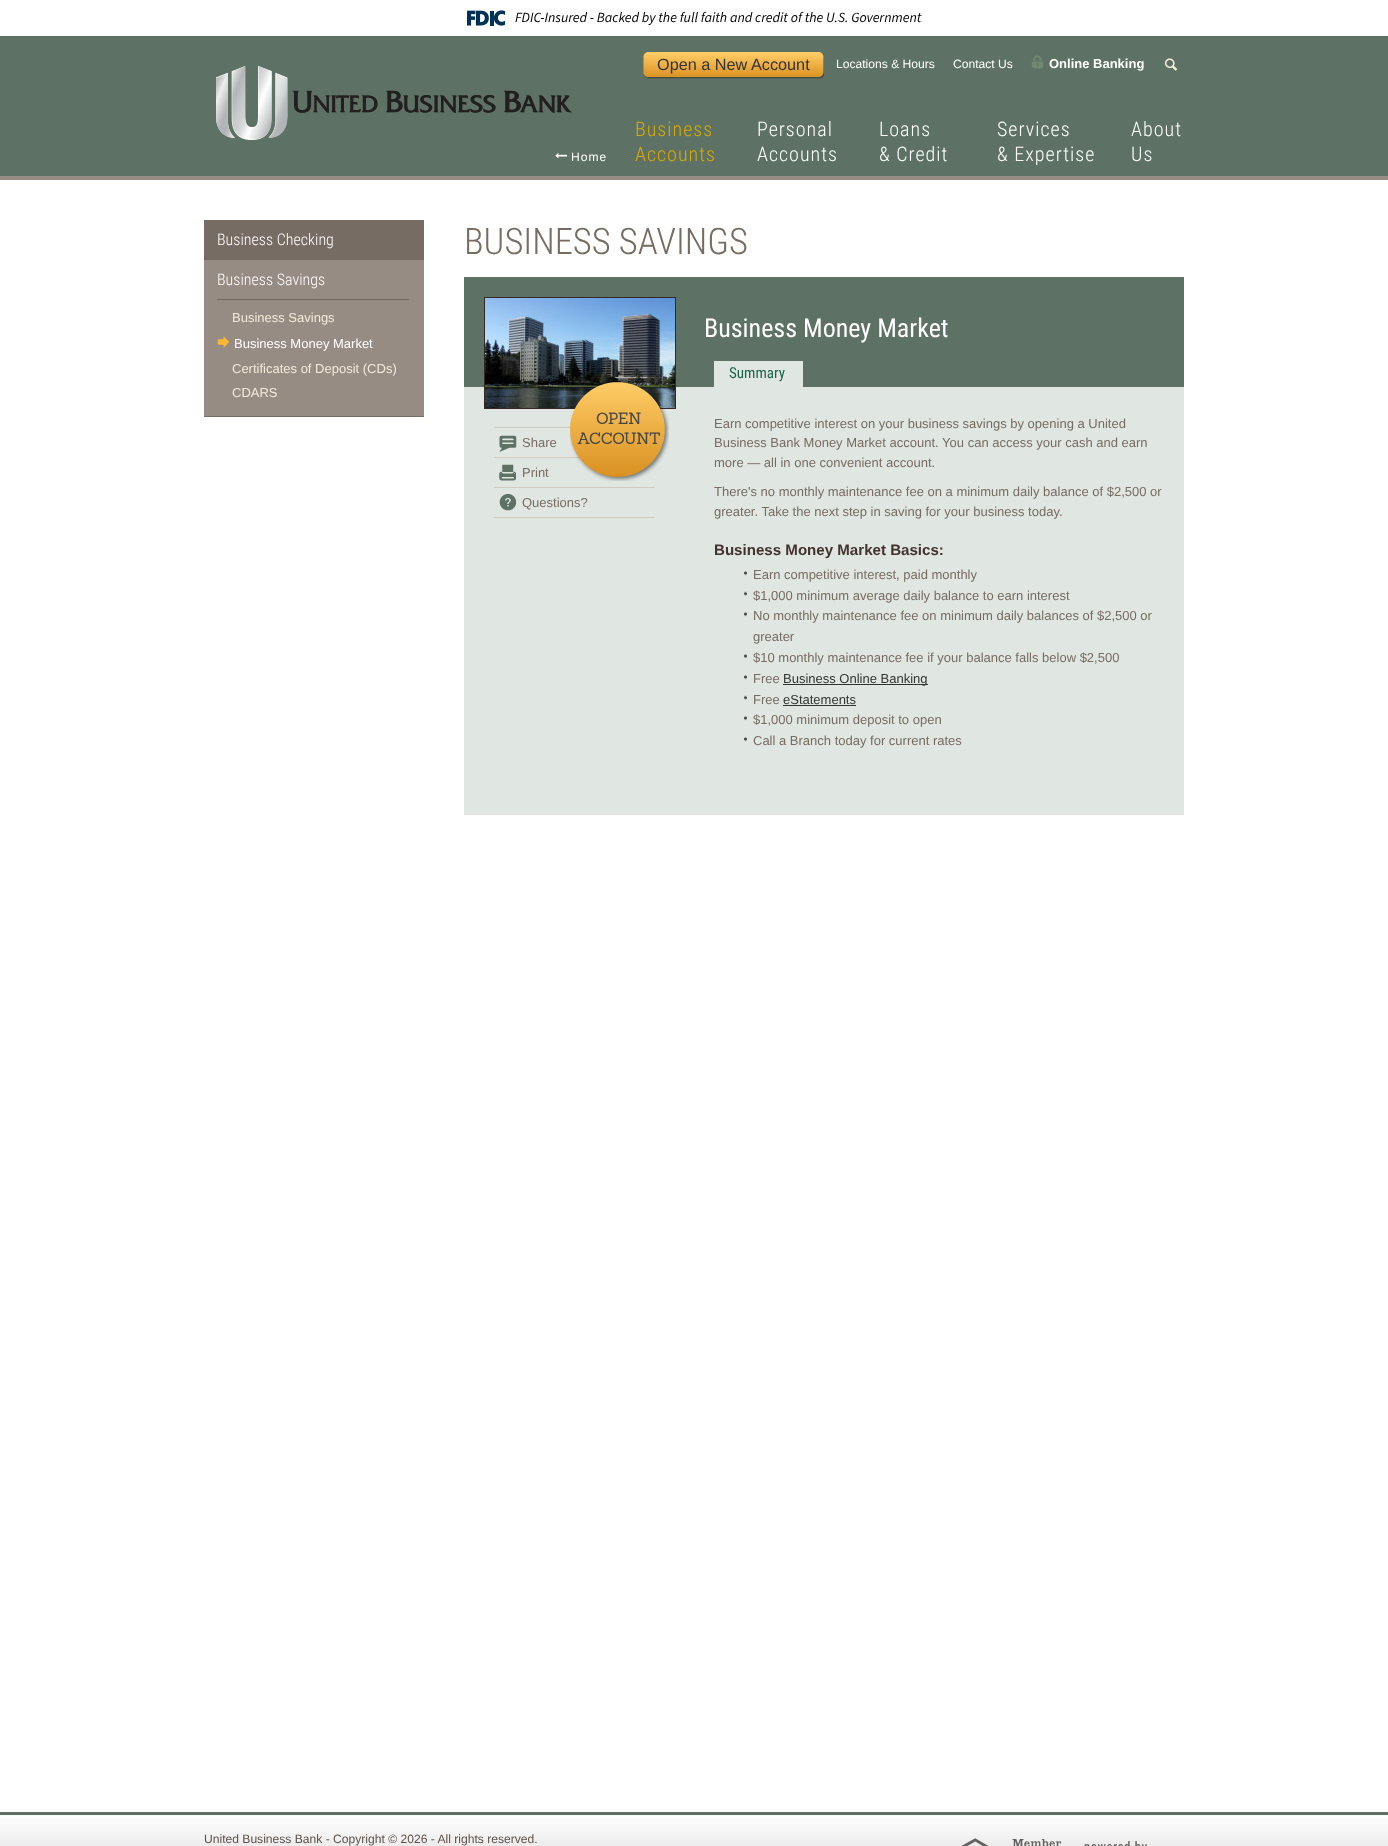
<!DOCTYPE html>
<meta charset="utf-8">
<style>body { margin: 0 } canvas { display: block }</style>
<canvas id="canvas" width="1388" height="1846"></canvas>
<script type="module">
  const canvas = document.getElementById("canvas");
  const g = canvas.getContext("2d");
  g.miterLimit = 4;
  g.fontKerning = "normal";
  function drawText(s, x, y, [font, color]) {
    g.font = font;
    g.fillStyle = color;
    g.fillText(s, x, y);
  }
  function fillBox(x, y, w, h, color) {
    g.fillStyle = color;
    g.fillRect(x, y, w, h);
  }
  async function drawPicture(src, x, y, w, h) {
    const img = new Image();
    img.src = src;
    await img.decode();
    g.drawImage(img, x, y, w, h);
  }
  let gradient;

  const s1 = ["italic 200 14px 'Source Sans 3'", "#000000"];
  const s2 = ["16.25px Liberation Sans", "#333333"];
  const s3 = ["12.1px Liberation Sans", "#FFFFFF"];
  const s4 = ["bold 13px Liberation Sans", "#FFFFFF"];
  const s5 = ["300 20px Roboto Condensed", "#DAAA00"];
  const s6 = ["300 20px Roboto Condensed", "#FFFFFF"];
  const s7 = ["300 16px Roboto Condensed", "#FFFFFF"];
  const s8 = ["13px Liberation Sans", "#F2EBD8"];
  const s9 = ["13px Liberation Sans", "#FFFFFF"];
  const s10 = ["300 36.5px Roboto Condensed", "#786B5F"];
  const s11 = ["26px Roboto Condensed", "#FFFFFF"];
  const s12 = ["16px Sanchez", "#464646"];
  const s13 = ["15.1px Roboto Condensed", "#1B644D"];
  const s14 = ["13px Liberation Sans", "#786B5F"];
  const s15 = ["bold 15.1px Liberation Sans", "#43332C"];
  const s16 = ["13px Liberation Sans", "#333333"];
  const s17 = ["12.1px Liberation Sans", "#5F5147"];

  fillBox(0, 0, 1388, 1846, "#FFFFFF");
  await drawPicture("pic1.png", 467, 10, 38, 16);
  drawText("FDIC-Insured - Backed by the full faith and credit of the U.S. Government", 515, 22, s1);
  fillBox(0, 36, 1388, 140, "#5D7165");
  fillBox(0, 176, 1388, 4, "#968C83");
  await drawPicture("pic2.png", 643, 52, 181, 27);
  drawText("Open a New Account", 657, 70, s2);
  drawText("Locations & Hours", 836, 68, s3);
  drawText("Contact Us", 953, 68, s3);
  await drawPicture("pic3.png", 1031, 55, 13, 14);
  drawText("Online Banking", 1049, 68, s4);
  await drawPicture("pic4.png", 1164, 58, 14, 13);
  await drawPicture("pic5.png", 216, 66, 356, 74);
  await drawPicture("pic6.png", 555, 153, 13, 6);
  g.letterSpacing = "1px";
  drawText("Home", 571, 161, s3);
  drawText("Business", 635, 136, s5);
  drawText("Accounts", 635, 161, s5);
  drawText("Personal", 757, 136, s6);
  drawText("Accounts", 757, 161, s6);
  drawText("Loans", 879, 136, s6);
  drawText("& Credit", 879, 161, s6);
  drawText("Services", 997, 136, s6);
  drawText("& Expertise", 997, 161, s6);
  drawText("About", 1131, 136, s6);
  drawText("Us", 1131, 161, s6);
  fillBox(204, 220, 220, 197, "#776C63");
  g.letterSpacing = "0px";
  drawText("Business Checking", 217, 245, s7);
  fillBox(204, 260, 220, 156, "#968C83");
  fillBox(217, 299, 192, 1, "#75685B");
  drawText("Business Savings", 217, 285, s7);
  drawText("Business Savings", 232, 322, s8);
  await drawPicture("pic7.png", 217, 336, 13, 12);
  drawText("Business Money Market", 234, 348, s9);
  drawText("Certificates of Deposit (CDs)", 232, 373, s8);
  drawText("CDARS", 232, 397, s8);
  drawText("BUSINESS SAVINGS", 464, 254, s10);
  fillBox(464, 277, 720, 110, "#5D7165");
  drawText("Business Money Market", 704, 337, s11);
  fillBox(464, 387, 720, 428, "#E0E7E3");
  g.strokeStyle = "#372722";
  g.strokeRect(484.5, 297.5, 191, 111);
  await drawPicture("pic8.png", 485, 298, 190, 110);
  fillBox(494, 427, 77, 1, "#D2CABA");
  fillBox(494, 457, 86, 1, "#D2CABA");
  await drawPicture("pic9.png", 570, 382, 99, 99);
  drawText("OPEN", 596, 424, s12);
  drawText("ACCOUNT", 577, 444, s12);
  fillBox(714, 361, 89, 26, "#E0E7E3");
  drawText("Summary", 729, 378, s13);
  drawText("Earn competitive interest on your business savings by opening a United", 714, 428, s14);
  drawText("Business Bank Money Market account. You can access your cash and earn", 714, 447, s14);
  drawText("more — all in one convenient account.", 714, 467, s14);
  drawText("There's no monthly maintenance fee on a minimum daily balance of $2,500 or", 714, 496, s14);
  drawText("greater. Take the next step in saving for your business today.", 714, 516, s14);
  drawText("Business Money Market Basics:", 714, 555, s15);
  await drawPicture("pic10.png", 744, 571, 3, 5);
  drawText("Earn competitive interest, paid monthly", 753, 579, s14);
  await drawPicture("pic11.png", 744, 591, 3, 5);
  drawText("$1,000 minimum average daily balance to earn interest", 753, 600, s14);
  await drawPicture("pic10.png", 744, 612, 3, 5);
  drawText("No monthly maintenance fee on minimum daily balances of $2,500 or", 753, 620, s14);
  drawText("greater", 753, 641, s14);
  await drawPicture("pic10.png", 744, 654, 3, 5);
  drawText("$10 monthly maintenance fee if your balance falls below $2,500", 753, 662, s14);
  await drawPicture("pic10.png", 744, 675, 3, 5);
  drawText("Free", 753, 683, s14);
  fillBox(783, 684, 145, 1, "#333333");
  drawText("Business Online Banking", 783, 683, s16);
  await drawPicture("pic11.png", 744, 695, 3, 5);
  drawText("Free", 753, 704, s14);
  drawText("eStatements", 783, 704, s16);
  fillBox(783, 705, 73, 1, "#333333");
  await drawPicture("pic10.png", 744, 716, 3, 5);
  drawText("$1,000 minimum deposit to open", 753, 724, s14);
  await drawPicture("pic10.png", 744, 737, 3, 5);
  drawText("Call a Branch today for current rates", 753, 745, s14);
  await drawPicture("pic12.png", 499, 435, 18, 17);
  drawText("Share", 522, 447, s14);
  await drawPicture("pic13.png", 499, 464, 17, 17);
  drawText("Print", 522, 477, s14);
  fillBox(494, 487, 161, 1, "#D2CABA");
  fillBox(494, 517, 161, 1, "#D2CABA");
  await drawPicture("pic14.png", 499, 494, 17, 17);
  drawText("Questions?", 522, 507, s14);
  gradient = g.createLinearGradient(694, 1815, 694, 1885);
  gradient.addColorStop(0, "#FEFEFE");
  gradient.addColorStop(1, "#D7D7D7");
  g.fillStyle = gradient;
  g.fillRect(0, 1818, 1388, 28);
  fillBox(0, 1812, 1388, 3, "#5D7165");
  drawText("United Business Bank - Copyright © 2026 - All rights reserved.", 204, 1843, s17);
  await drawPicture("pic15.png", 961, 1838, 28, 8);
  await drawPicture("pic16.png", 1012, 1839, 50, 7);
  await drawPicture("pic17.png", 1084, 1841, 63, 5);
</script>
